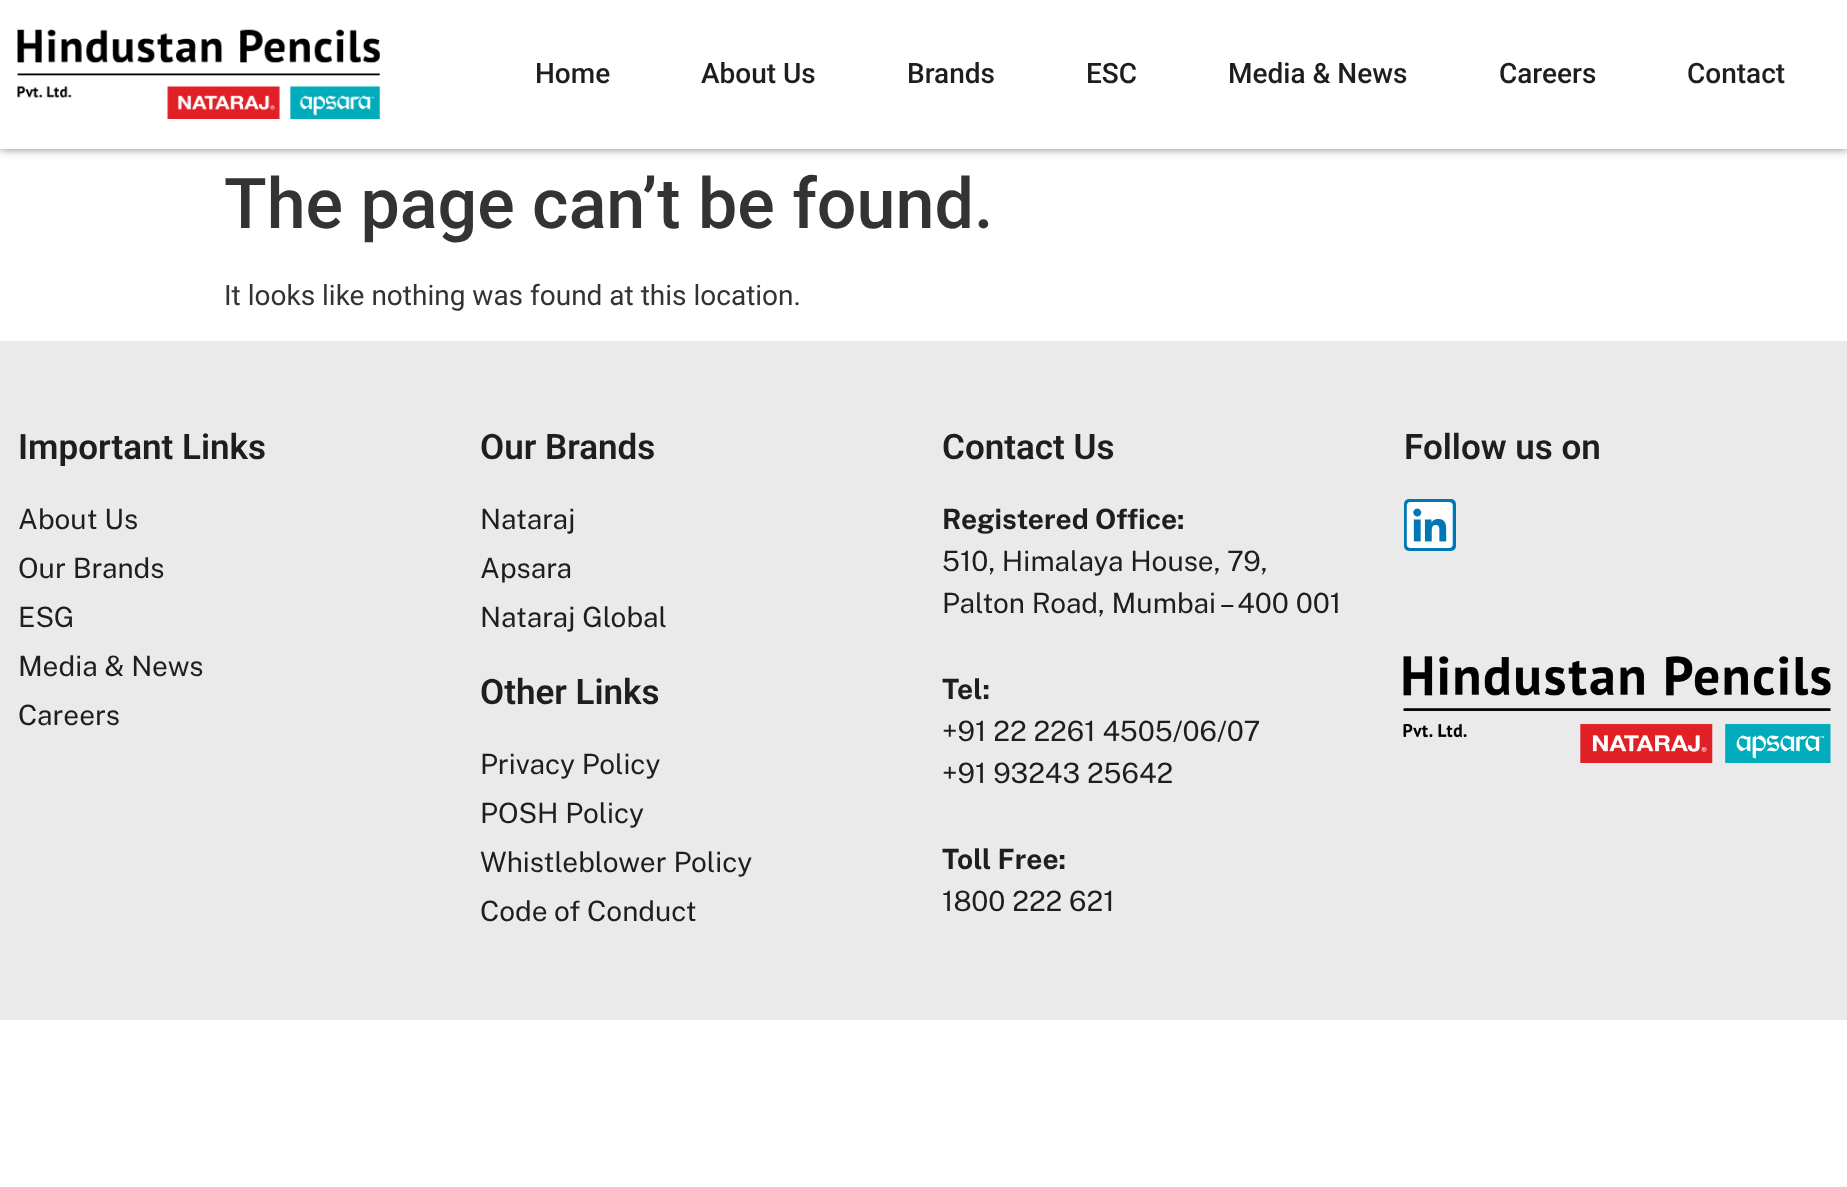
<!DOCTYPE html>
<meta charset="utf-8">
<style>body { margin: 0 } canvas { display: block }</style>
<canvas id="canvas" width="1847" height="1187"></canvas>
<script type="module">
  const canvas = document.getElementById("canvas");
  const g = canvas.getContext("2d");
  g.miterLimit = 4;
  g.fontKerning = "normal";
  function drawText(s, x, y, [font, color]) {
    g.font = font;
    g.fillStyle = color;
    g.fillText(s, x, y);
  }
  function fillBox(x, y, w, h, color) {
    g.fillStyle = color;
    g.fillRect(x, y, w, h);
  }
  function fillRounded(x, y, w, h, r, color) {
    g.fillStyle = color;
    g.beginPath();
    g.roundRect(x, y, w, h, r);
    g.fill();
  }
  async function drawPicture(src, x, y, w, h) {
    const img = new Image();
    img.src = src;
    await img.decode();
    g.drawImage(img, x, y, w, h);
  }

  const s1 = ["500 28px Roboto", "#1E1E1E"];
  const s2 = ["500 70px Roboto", "#333333"];
  const s3 = ["28px Roboto", "#333333"];
  const s4 = ["600 35px Roboto", "#1E1E1E"];
  const s5 = ["28px Public Sans", "#1E1E1E"];
  const s6 = ["bold 28px Public Sans", "#1E1E1E"];

  fillBox(0, 0, 1847, 1187, "#FFFFFF");
  g.save();
  g.beginPath();
  g.moveTo(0, 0);
  g.lineTo(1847, 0);
  g.lineTo(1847, 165);
  g.lineTo(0, 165);
  g.closePath();
  g.moveTo(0, 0);
  g.lineTo(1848, 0);
  g.lineTo(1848, 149);
  g.lineTo(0, 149);
  g.closePath();
  g.clip("evenodd");
  g.fillStyle = "rgba(0, 0, 0, 0.5)";
  g.filter = "blur(5px)";
  g.beginPath();
  g.rect(0, 0, 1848, 149);
  g.fill();
  g.filter = "none";
  g.restore();
  await drawPicture("pic1.png", 17, 29, 363, 90);
  drawText("Home", 535, 83, s1);
  drawText("About Us", 701, 83, s1);
  drawText("Brands", 907, 83, s1);
  drawText("ESC", 1086, 83, s1);
  drawText("Media & News", 1228, 83, s1);
  drawText("Careers", 1499, 83, s1);
  drawText("Contact", 1687, 83, s1);
  drawText("The page can’t be found.", 224, 228, s2);
  drawText("It looks like nothing was found at this location.", 224, 305, s3);
  fillBox(0, 341, 1847, 679, "#EAEAEA");
  drawText("Important Links", 18, 459, s4);
  drawText("About Us", 18, 529, s5);
  drawText("Our Brands", 18, 578, s5);
  drawText("ESG", 18, 627, s5);
  drawText("Media & News", 18, 676, s5);
  drawText("Careers", 18, 725, s5);
  drawText("Our Brands", 480, 459, s4);
  drawText("Nataraj", 480, 529, s5);
  drawText("Apsara", 480, 578, s5);
  drawText("Nataraj Global", 480, 627, s5);
  drawText("Other Links", 480, 704, s4);
  drawText("Privacy Policy", 480, 774, s5);
  drawText("POSH Policy", 480, 823, s5);
  drawText("Whistleblower Policy", 480, 872, s5);
  drawText("Code of Conduct", 480, 921, s5);
  drawText("Contact Us", 942, 459, s4);
  drawText("Registered Office:", 942, 529, s6);
  drawText("510, Himalaya House, 79,", 942, 571, s5);
  drawText("Palton Road, Mumbai – 400 001", 942, 613, s5);
  drawText("Tel:", 942, 699, s6);
  drawText("+91 22 2261 4505/06/07", 942, 741, s5);
  drawText("+91 93243 25642", 942, 783, s5);
  drawText("Toll Free:", 942, 869, s6);
  drawText("1800 222 621", 942, 911, s5);
  drawText("Follow us on", 1404, 459, s4);
  fillRounded(1404, 499, 52, 52, 5, "#0077B5");
  await drawPicture("pic2.png", 1406, 502, 47, 46);
  await drawPicture("pic3.png", 1403, 656, 428, 107);
</script>
